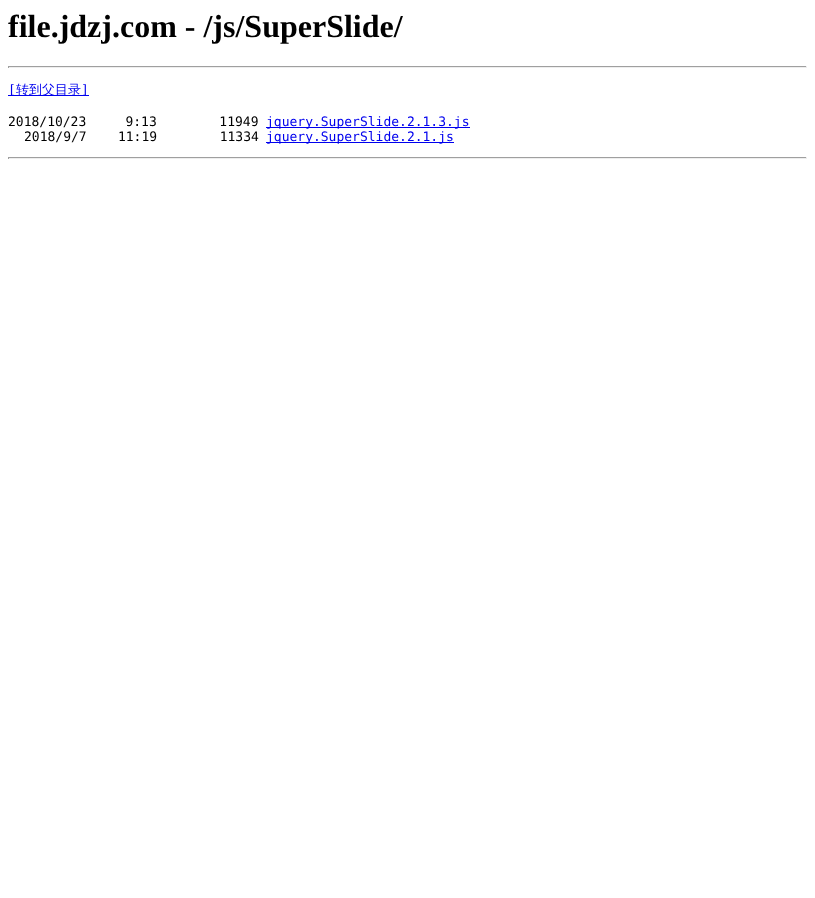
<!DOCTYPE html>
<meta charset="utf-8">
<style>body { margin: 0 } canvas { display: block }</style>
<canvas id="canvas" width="815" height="898"></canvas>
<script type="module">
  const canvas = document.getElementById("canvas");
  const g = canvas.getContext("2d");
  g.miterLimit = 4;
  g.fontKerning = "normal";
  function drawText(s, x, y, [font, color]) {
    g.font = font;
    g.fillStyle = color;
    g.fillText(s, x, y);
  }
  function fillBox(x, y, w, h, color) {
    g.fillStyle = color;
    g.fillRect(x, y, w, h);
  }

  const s1 = ["bold 32px Liberation Serif", "#000000"];
  const s2 = ["13px DejaVu Sans Mono", "#0000EE"];
  const s3 = ["500 13px WenQuanYi Zen Hei", "#0000EE"];
  const s4 = ["13px DejaVu Sans Mono", "#000000"];

  fillBox(0, 0, 815, 898, "#FFFFFF");
  drawText("file.jdzj.com - /js/SuperSlide/", 8, 37, s1);
  fillBox(8, 66, 799, 1, "#9F9F9F");
  fillBox(806, 66, 1, 2, "#EEEEEE");
  fillBox(8, 67, 799, 1, "#EEEEEE");
  fillBox(8, 66, 1, 2, "#9F9F9F");
  fillBox(8, 95, 81, 1, "#0000EE");
  drawText("[", 8, 94, s2);
  drawText("转到父目录", 16, 94, s3);
  drawText("]", 81, 94, s2);
  drawText("2018/10/23     9:13        11949", 8, 126, s4);
  fillBox(266, 127, 204, 1, "#0000EE");
  drawText("jquery.SuperSlide.2.1.3.js", 266, 126, s2);
  drawText("2018/9/7    11:19        11334", 24, 141, s4);
  fillBox(266, 142, 188, 1, "#0000EE");
  drawText("jquery.SuperSlide.2.1.js", 266, 141, s2);
  fillBox(8, 157, 799, 1, "#9F9F9F");
  fillBox(806, 157, 1, 2, "#EEEEEE");
  fillBox(8, 158, 799, 1, "#EEEEEE");
  fillBox(8, 157, 1, 2, "#9F9F9F");
</script>
